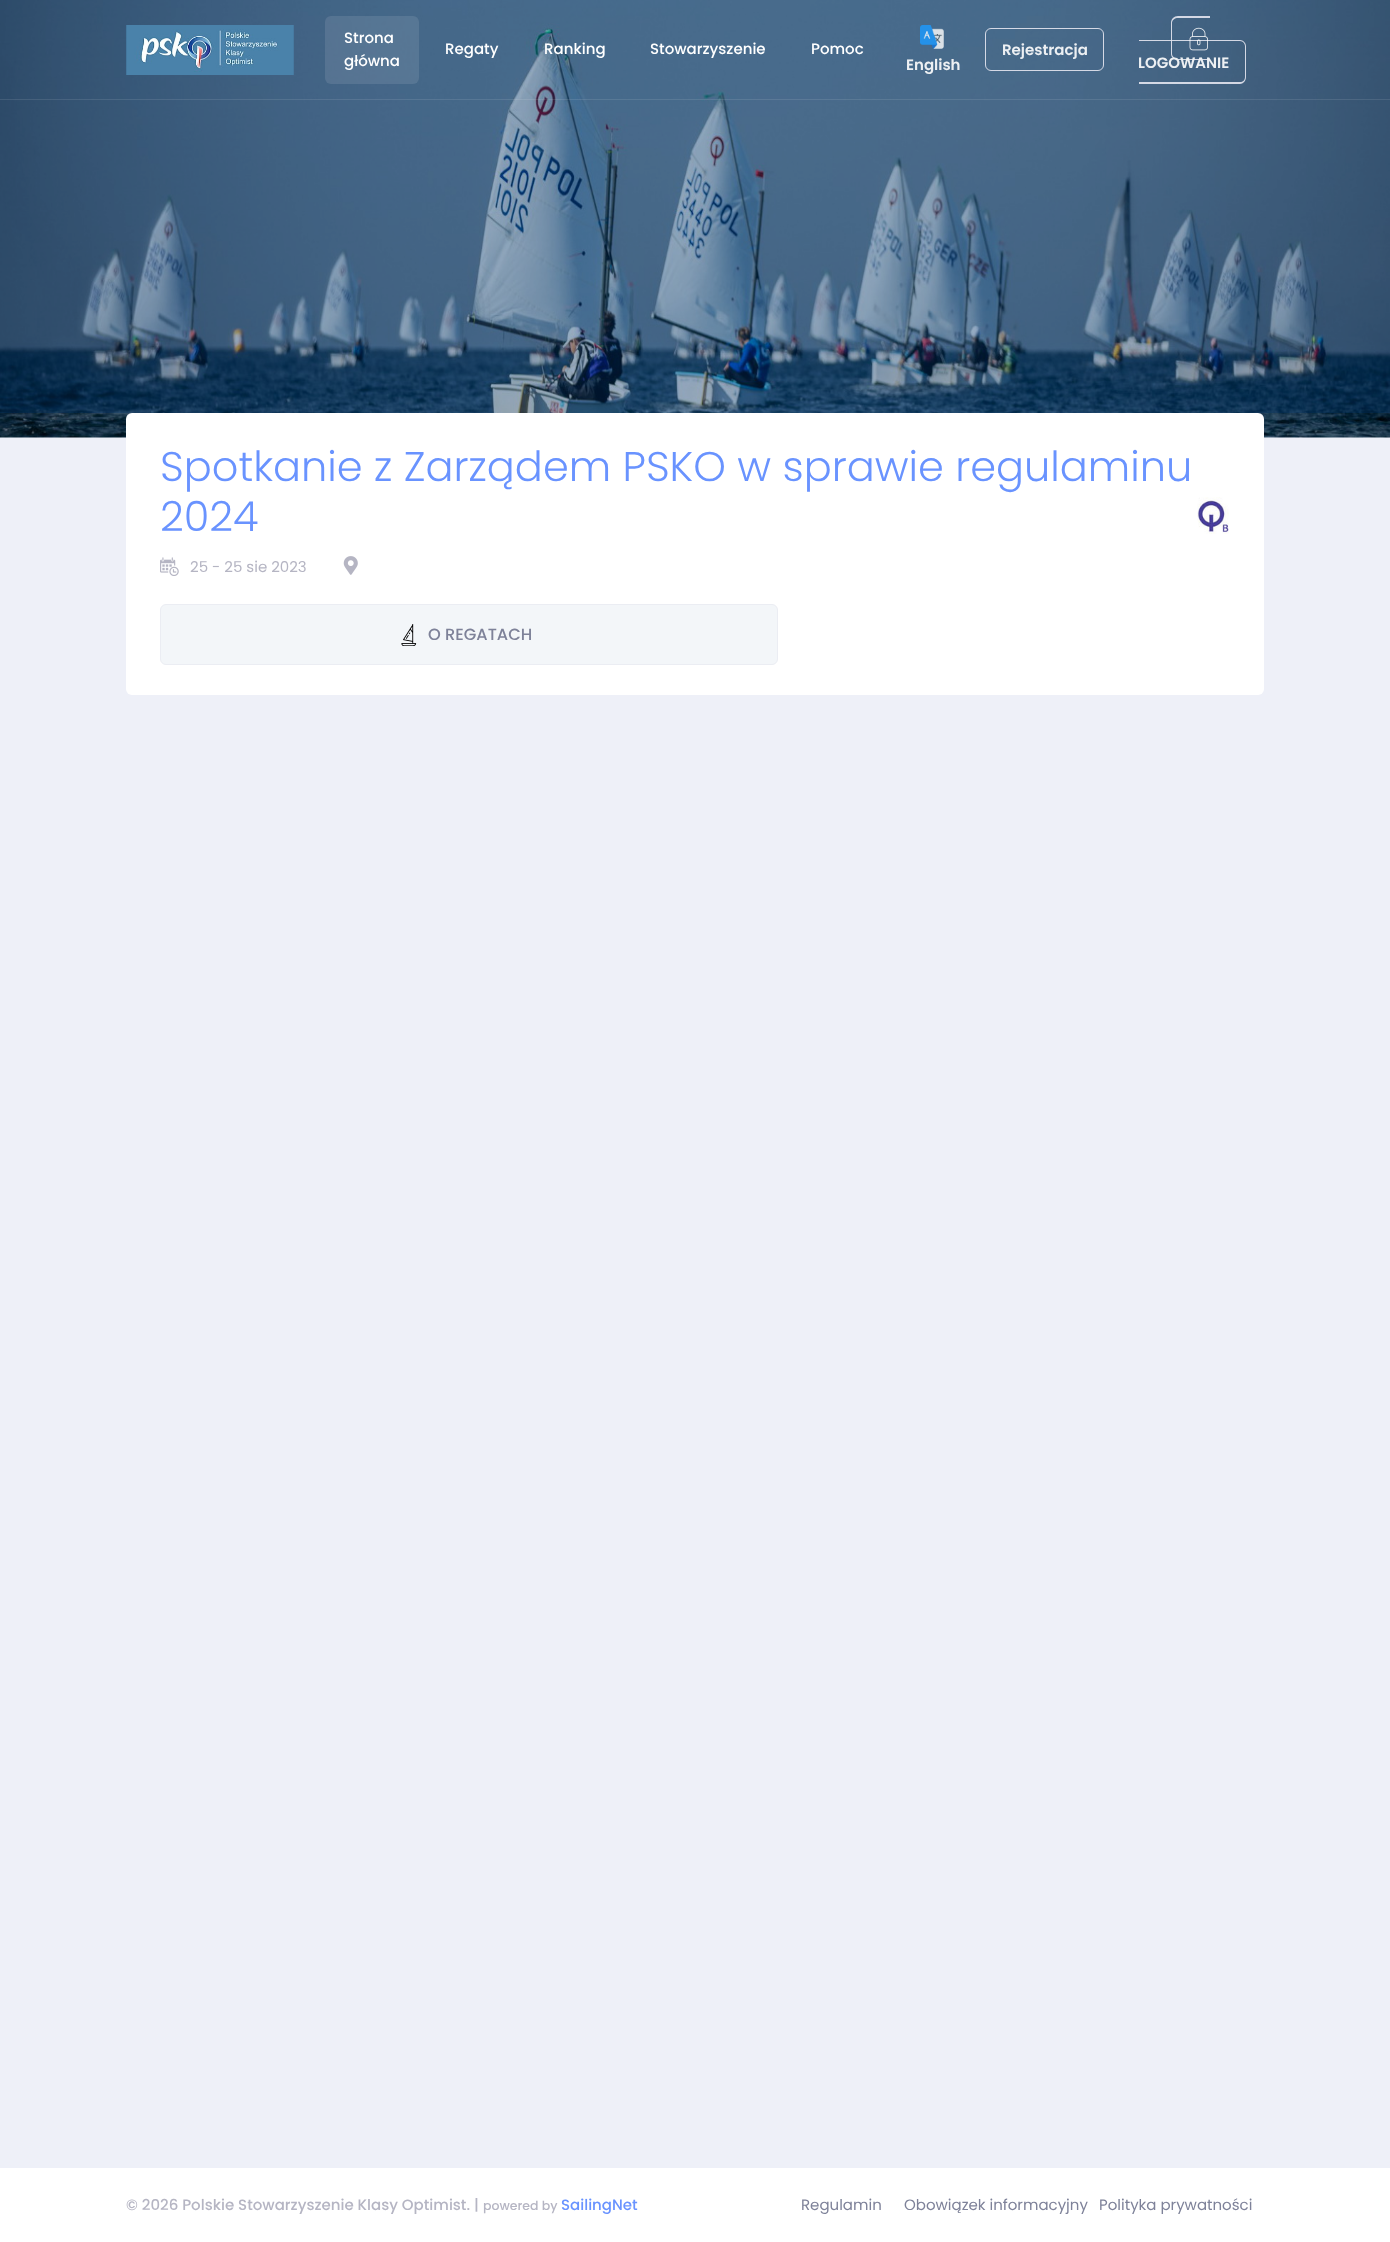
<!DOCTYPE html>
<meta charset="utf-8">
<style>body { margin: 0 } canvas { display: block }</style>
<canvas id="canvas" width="1390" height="2242"></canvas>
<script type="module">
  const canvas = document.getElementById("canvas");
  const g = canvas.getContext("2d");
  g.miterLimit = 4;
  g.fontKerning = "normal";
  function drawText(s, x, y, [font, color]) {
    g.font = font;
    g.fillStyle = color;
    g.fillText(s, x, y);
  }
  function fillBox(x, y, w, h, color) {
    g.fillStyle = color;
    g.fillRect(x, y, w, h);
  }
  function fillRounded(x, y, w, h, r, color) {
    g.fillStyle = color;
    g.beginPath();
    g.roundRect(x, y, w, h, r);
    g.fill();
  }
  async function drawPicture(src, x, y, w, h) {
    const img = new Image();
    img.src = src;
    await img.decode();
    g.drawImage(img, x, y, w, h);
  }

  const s1 = ["500 15px Poppins", "#FFFFFF"];
  const s2 = ["600 15px Poppins", "#EDF0F3"];
  const s3 = ["300 41.5px Poppins", "#6993FF"];
  const s4 = ["15px Poppins", "#B5B5C3"];
  const s5 = ["500 16.25px Poppins", "#7E8299"];
  const s6 = ["500 15px Poppins", "#B5B5C3"];
  const s7 = ["500 12.5px Poppins", "#B5B5C3"];
  const s8 = ["500 15px Poppins", "#6993FF"];
  const s9 = ["15px Poppins", "#7E8299"];

  fillBox(0, 0, 1390, 2242, "#EEF0F8");
  await drawPicture("pic1.png", 0, 0, 1390, 438);
  fillBox(0, 0, 1390, 100, "rgba(0, 51, 102, 0.4)");
  fillBox(0, 99, 1390, 1, "rgba(255, 255, 255, 0.1)");
  await drawPicture("pic2.png", 126, 25, 168, 50);
  fillRounded(325, 16, 94, 68, 6, "rgba(255, 255, 255, 0.1)");
  drawText("Strona", 344, 43, s1);
  drawText("główna", 344, 66, s1);
  drawText("Regaty", 445, 54, s1);
  drawText("Ranking", 544, 54, s1);
  drawText("Stowarzyszenie", 650, 54, s1);
  drawText("Pomoc", 811, 54, s1);
  g.beginPath();
  g.roundRect(985.5, 28.5, 118, 42, 5.5);
  g.strokeStyle = "rgba(228, 230, 239, 0.9)";
  g.stroke();
  drawText("Rejestracja", 1002, 55, s2);
  await drawPicture("pic3.png", 920, 25, 24, 24);
  drawText("English", 906, 70, s2);
  g.fillStyle = "rgba(228, 230, 239, 0.9)";
  g.beginPath();
  g.moveTo(1178, 16);
  g.lineTo(1210, 16);
  g.lineTo(1210, 60);
  g.lineTo(1178, 60);
  g.bezierCurveTo(1174, 60, 1171, 57, 1171, 54);
  g.lineTo(1171, 23);
  g.bezierCurveTo(1171, 19, 1174, 16, 1178, 16);
  g.closePath();
  g.moveTo(1178, 18);
  g.lineTo(1210, 18);
  g.lineTo(1210, 59);
  g.lineTo(1178, 59);
  g.bezierCurveTo(1175, 59, 1172, 56, 1172, 54);
  g.lineTo(1172, 23);
  g.bezierCurveTo(1172, 20, 1175, 18, 1178, 18);
  g.closePath();
  g.fill("evenodd");
  g.beginPath();
  g.moveTo(1139, 40);
  g.lineTo(1240, 40);
  g.bezierCurveTo(1243, 40, 1246, 43, 1246, 46);
  g.lineTo(1246, 77);
  g.bezierCurveTo(1246, 81, 1243, 84, 1240, 84);
  g.lineTo(1139, 84);
  g.closePath();
  g.moveTo(1139, 41);
  g.lineTo(1240, 41);
  g.bezierCurveTo(1243, 41, 1245, 44, 1245, 46);
  g.lineTo(1245, 77);
  g.bezierCurveTo(1245, 80, 1243, 82, 1240, 82);
  g.lineTo(1139, 82);
  g.closePath();
  g.fill("evenodd");
  await drawPicture("pic4.png", 1189, 27, 19, 24);
  drawText("LOGOWANIE", 1138, 68, s2);
  fillBox(0, 100, 1390, 313, "rgba(0, 51, 102, 0.4)");
  fillRounded(126, 413, 1138, 282, 6, "#FFFFFF");
  drawText("Spotkanie z Zarządem PSKO w sprawie regulaminu", 160, 481, s3);
  drawText("2024", 160, 531, s3);
  await drawPicture("pic5.png", 160, 557, 19, 19);
  drawText("25 - 25 sie 2023", 190, 572, s4);
  await drawPicture("pic6.png", 343, 556, 15, 19);
  await drawPicture("pic7.png", 1197, 497, 32, 37);
  g.fillStyle = "#F3F6F9";
  g.beginPath();
  g.roundRect(160.5, 604.5, 617, 60, 5.5);
  g.fill();
  g.strokeStyle = "#EBEDF3";
  g.stroke();
  await drawPicture("pic8.png", 401, 624, 16, 22);
  drawText("O REGATACH", 428, 640, s5);
  fillBox(0, 2168, 1390, 74, "#FFFFFF");
  drawText("© 2026 Polskie Stowarzyszenie Klasy Optimist. |", 126, 2210, s6);
  drawText("powered by", 483, 2210, s7);
  drawText("SailingNet", 561, 2210, s8);
  drawText("Regulamin", 801, 2210, s9);
  drawText("Obowiązek informacyjny", 904, 2210, s9);
  drawText("Polityka prywatności", 1099, 2210, s9);
</script>
